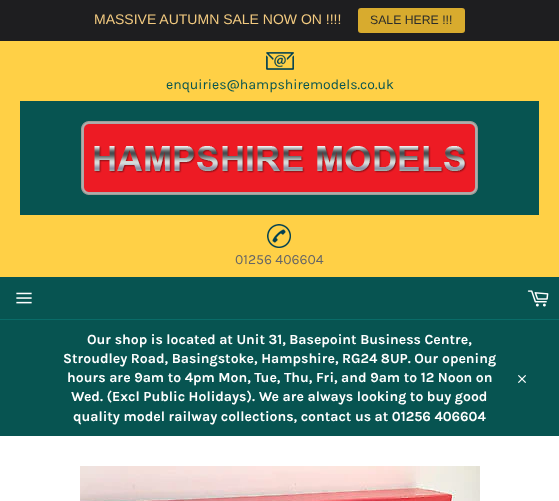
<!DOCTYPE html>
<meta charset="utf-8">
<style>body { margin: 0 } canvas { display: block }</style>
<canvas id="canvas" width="559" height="501"></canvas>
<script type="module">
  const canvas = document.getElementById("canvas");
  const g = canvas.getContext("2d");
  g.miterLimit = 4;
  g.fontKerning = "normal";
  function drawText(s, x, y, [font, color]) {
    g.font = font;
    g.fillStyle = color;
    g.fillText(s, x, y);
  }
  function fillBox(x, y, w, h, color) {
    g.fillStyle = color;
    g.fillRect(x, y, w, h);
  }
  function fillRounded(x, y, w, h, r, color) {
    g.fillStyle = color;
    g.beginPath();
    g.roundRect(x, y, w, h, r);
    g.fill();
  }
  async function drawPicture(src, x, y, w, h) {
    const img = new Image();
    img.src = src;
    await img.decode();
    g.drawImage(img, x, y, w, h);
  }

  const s1 = ["14px Liberation Sans", "#F2CA80"];
  const s2 = ["12.25px Liberation Sans", "#2A2C2B"];
  const s3 = ["14px Karla", "#075451"];
  const s4 = ["14px Karla", "#666666"];
  const s5 = ["bold 14px Karla", "#FFFFFF"];

  fillBox(0, 0, 559, 501, "#FFD046");
  fillBox(0, 0, 559, 41, "#1E1E20");
  drawText("MASSIVE AUTUMN SALE NOW ON !!!!", 94, 24, s1);
  fillRounded(358, 8, 107, 25, 3, "#D8AB2E");
  drawText("SALE HERE !!!", 370, 24, s2);
  await drawPicture("pic1.png", 266, 52, 28, 18);
  drawText("enquiries@hampshiremodels.co.uk", 166, 89, s3);
  fillBox(20, 101, 519, 114, "#075451");
  await drawPicture("pic2.png", 81, 121, 397, 74);
  await drawPicture("pic3.png", 267, 224, 24, 24);
  drawText("01256 406604", 235, 264, s4);
  fillBox(0, 277, 559, 42, "#075451");
  fillBox(0, 319, 559, 1, "#096C68");
  await drawPicture("pic4.png", 16, 292, 16, 12);
  await drawPicture("pic5.png", 527, 290, 22, 17);
  fillBox(0, 320, 559, 116, "#075451");
  drawText("Our shop is located at Unit 31, Basepoint Business Centre,", 87, 344, s5);
  drawText("Stroudley Road, Basingstoke, Hampshire, RG24 8UP. Our opening", 63, 363, s5);
  drawText("hours are 9am to 4pm Mon, Tue, Thu, Fri, and 9am to 12 Noon on", 67, 382, s5);
  drawText("Wed. (Excl Public Holidays). We are always looking to buy good", 71, 401, s5);
  drawText("quality model railway collections, contact us at 01256 406604", 73, 421, s5);
  await drawPicture("pic6.png", 518, 375, 8, 8);
  fillBox(0, 436, 559, 65, "#FFFFFF");
  await drawPicture("pic7.png", 80, 466, 400, 35);
</script>
